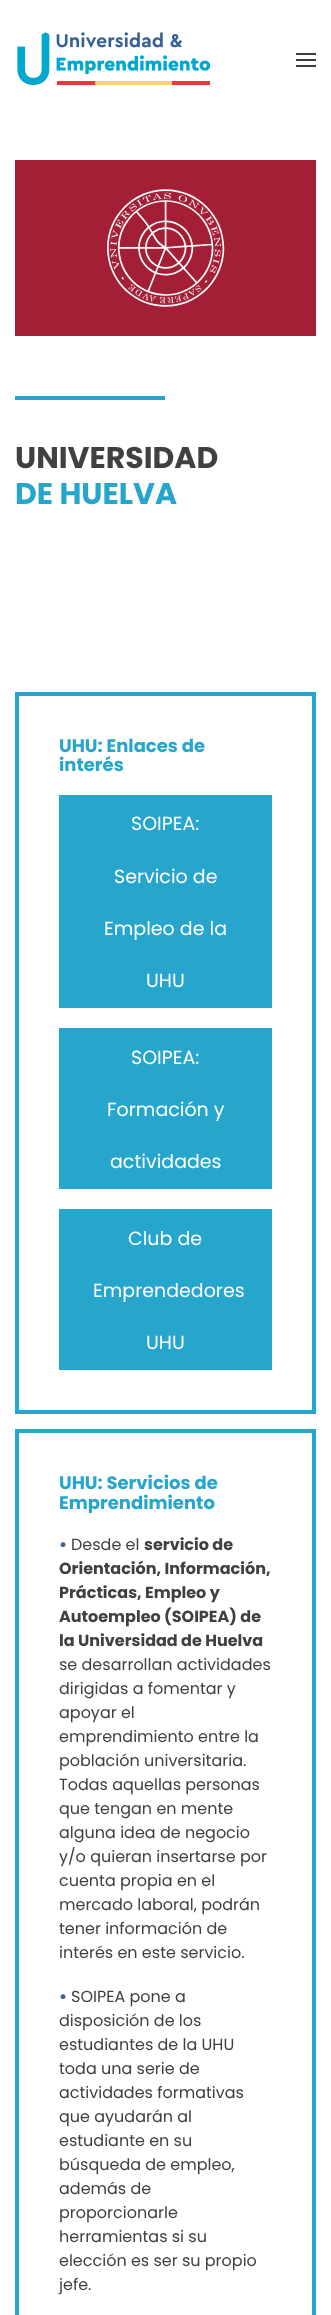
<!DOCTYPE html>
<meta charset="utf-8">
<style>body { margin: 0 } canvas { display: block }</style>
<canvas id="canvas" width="331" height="2315"></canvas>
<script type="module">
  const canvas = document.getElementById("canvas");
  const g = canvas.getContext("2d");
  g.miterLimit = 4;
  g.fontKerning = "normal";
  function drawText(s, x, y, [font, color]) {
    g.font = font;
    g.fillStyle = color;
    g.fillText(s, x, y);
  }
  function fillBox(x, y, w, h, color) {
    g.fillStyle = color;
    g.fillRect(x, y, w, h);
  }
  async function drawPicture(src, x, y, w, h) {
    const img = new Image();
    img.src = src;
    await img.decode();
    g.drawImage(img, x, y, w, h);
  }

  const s1 = ["bold 30px Poppins", "#404042"];
  const s2 = ["bold 30px Poppins", "#26A5CD"];
  const s3 = ["bold 18px Poppins", "#26A5CD"];
  const s4 = ["19px Poppins", "#FFFFFF"];
  const s5 = ["bold 16px Poppins", "#436092"];
  const s6 = ["16px Poppins", "#404042"];
  const s7 = ["bold 16px Poppins", "#404042"];

  fillBox(0, 0, 331, 2315, "#FFFFFF");
  await drawPicture("pic1.png", 17, 32, 194, 53);
  fillBox(296, 53, 20, 2, "#3D3D3D");
  fillBox(296, 59, 20, 2, "#3D3D3D");
  fillBox(296, 65, 20, 2, "#3D3D3D");
  await drawPicture("pic2.png", 15, 160, 301, 176);
  fillBox(15, 396, 150, 4, "#26A5CD");
  drawText("UNIVERSIDAD", 15, 468, s1);
  drawText("DE HUELVA", 15, 504, s2);
  g.strokeStyle = "#26A5CD";
  g.lineWidth = 4;
  g.strokeRect(17, 694, 297, 718);
  drawText("UHU: Enlaces de", 59, 752, s3);
  drawText("interés", 59, 771, s3);
  fillBox(59, 795, 213, 213, "#26A5CD");
  drawText("SOIPEA:", 131, 830, s4);
  drawText("Servicio de", 114, 883, s4);
  drawText("Empleo de la", 104, 935, s4);
  drawText("UHU", 146, 987, s4);
  fillBox(59, 1028, 213, 161, "#26A5CD");
  drawText("SOIPEA:", 131, 1064, s4);
  drawText("Formación y", 107, 1116, s4);
  drawText("actividades", 110, 1168, s4);
  fillBox(59, 1209, 213, 161, "#26A5CD");
  drawText("Club de", 128, 1245, s4);
  drawText("Emprendedores", 93, 1297, s4);
  drawText("UHU", 146, 1349, s4);
  g.strokeRect(17, 1431, 297, 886);
  drawText("UHU: Servicios de", 59, 1489, s3);
  g.save();
  g.beginPath();
  g.rect(59, 1473, 213, 40);
  g.clip();
  drawText("Emprendimiento", 59, 1509, s3);
  g.restore();
  drawText("•", 59, 1550, s5);
  drawText("Desde el", 71, 1550, s6);
  drawText("servicio de", 144, 1550, s7);
  drawText("Orientación, Información,", 59, 1574, s7);
  drawText("Prácticas, Empleo y", 59, 1598, s7);
  drawText("Autoempleo (SOIPEA) de", 59, 1622, s7);
  drawText("la Universidad de Huelva", 59, 1646, s7);
  drawText("se desarrollan actividades", 59, 1670, s6);
  drawText("dirigidas a fomentar y", 59, 1694, s6);
  drawText("apoyar el", 59, 1718, s6);
  drawText("emprendimiento entre la", 59, 1742, s6);
  drawText("población universitaria.", 59, 1766, s6);
  drawText("Todas aquellas personas", 59, 1790, s6);
  drawText("que tengan en mente", 59, 1814, s6);
  drawText("alguna idea de negocio", 59, 1838, s6);
  drawText("y/o quieran insertarse por", 59, 1862, s6);
  drawText("cuenta propia en el", 59, 1886, s6);
  drawText("mercado laboral, podrán", 59, 1910, s6);
  drawText("tener información de", 59, 1934, s6);
  drawText("interés en este servicio.", 59, 1958, s6);
  drawText("•", 59, 2002, s5);
  drawText("SOIPEA pone a", 71, 2002, s6);
  drawText("disposición de los", 59, 2026, s6);
  drawText("estudiantes de la UHU", 59, 2050, s6);
  drawText("toda una serie de", 59, 2074, s6);
  drawText("actividades formativas", 59, 2098, s6);
  drawText("que ayudarán al", 59, 2122, s6);
  drawText("estudiante en su", 59, 2146, s6);
  drawText("búsqueda de empleo,", 59, 2170, s6);
  drawText("además de", 59, 2194, s6);
  drawText("proporcionarle", 59, 2218, s6);
  drawText("herramientas si su", 59, 2242, s6);
  drawText("elección es ser su propio", 59, 2266, s6);
  drawText("jefe.", 59, 2290, s6);
</script>
